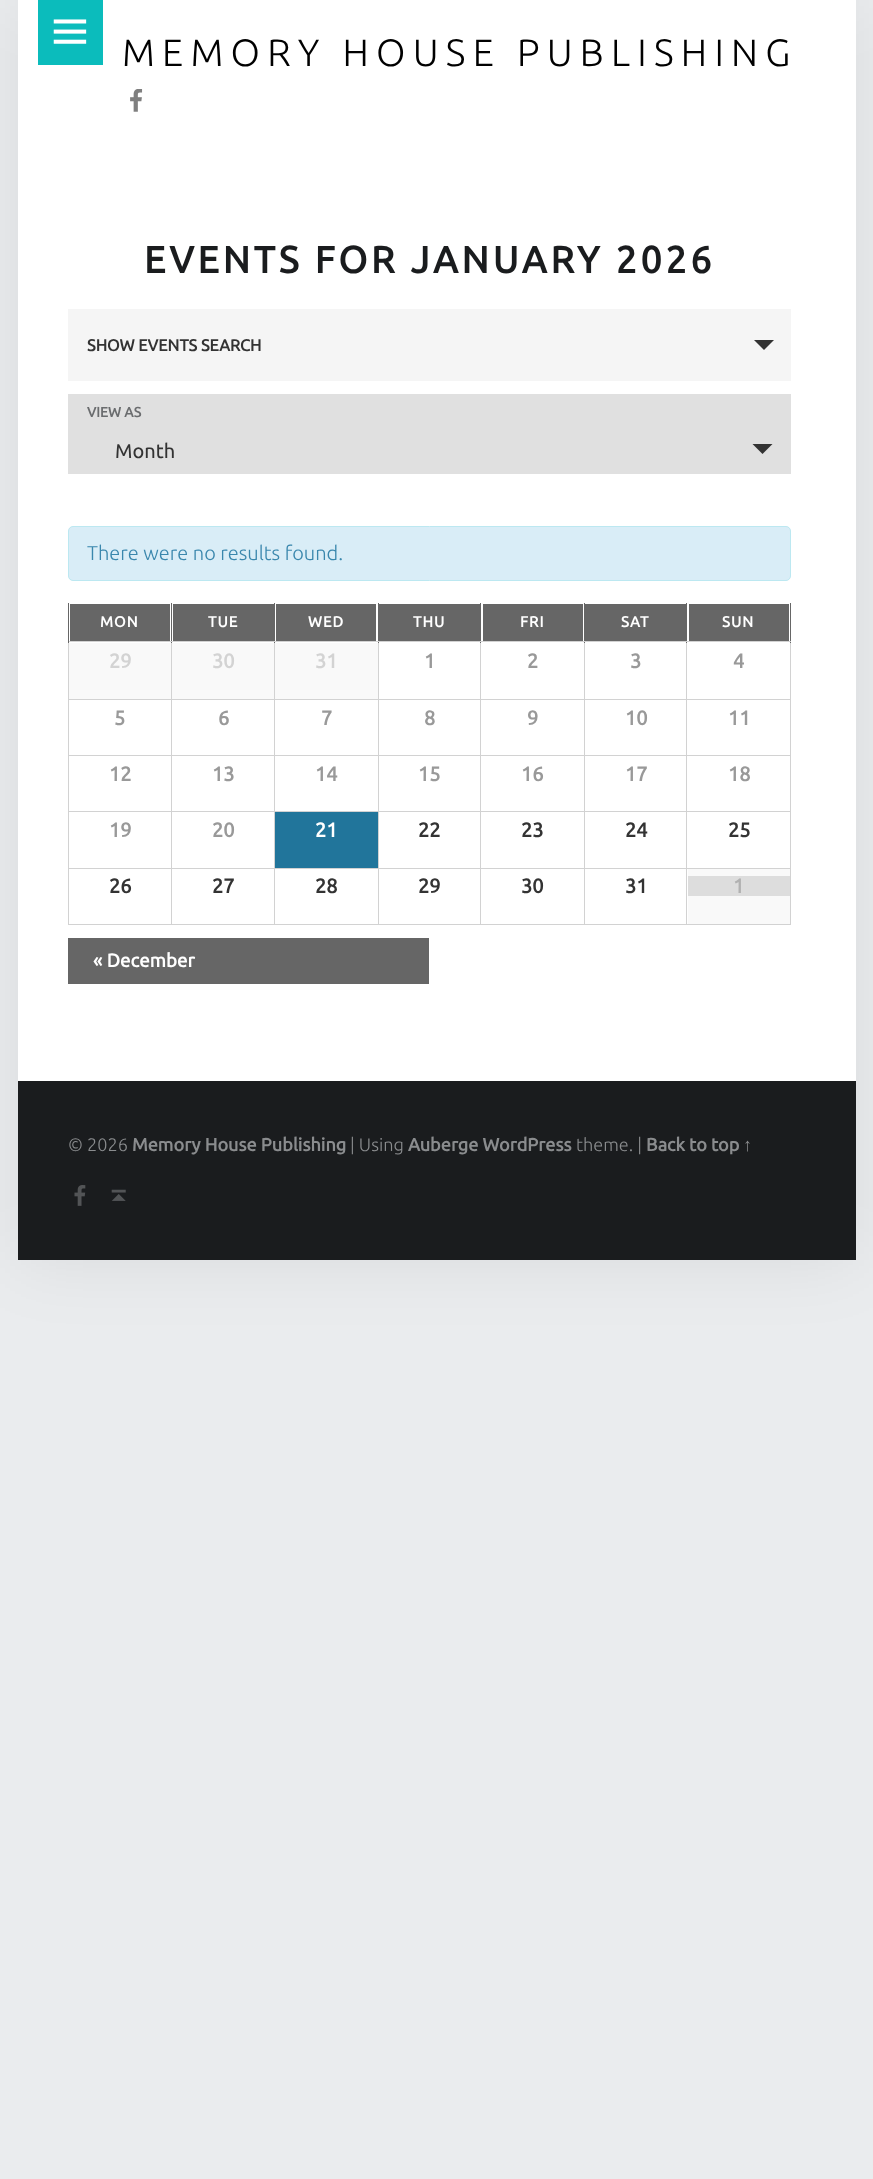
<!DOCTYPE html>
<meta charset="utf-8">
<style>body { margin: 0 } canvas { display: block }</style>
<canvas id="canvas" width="873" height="2179"></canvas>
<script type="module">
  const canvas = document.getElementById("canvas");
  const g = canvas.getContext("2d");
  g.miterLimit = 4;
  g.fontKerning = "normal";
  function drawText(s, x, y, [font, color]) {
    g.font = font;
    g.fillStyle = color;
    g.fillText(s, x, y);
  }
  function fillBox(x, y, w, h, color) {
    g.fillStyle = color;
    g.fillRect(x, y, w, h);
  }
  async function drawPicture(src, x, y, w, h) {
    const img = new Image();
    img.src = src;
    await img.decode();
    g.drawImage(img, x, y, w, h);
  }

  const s1 = ["300 38px Ubuntu", "#000000"];
  const s2 = ["bold 37.5px Ubuntu", "#1A1C1E"];
  const s3 = ["bold 16.25px Ubuntu", "#333333"];
  const s4 = ["bold 14px Ubuntu", "#6A6C6E"];
  const s5 = ["20px Ubuntu", "#333333"];
  const s6 = ["300 20px Ubuntu", "#3A87AD"];
  const s7 = ["bold 15px Ubuntu", "#FFFFFF"];
  const s8 = ["bold 20px Ubuntu", "#D3D3D3"];
  const s9 = ["bold 20px Ubuntu", "#999999"];
  const s10 = ["bold 20px Ubuntu", "#FFFFFF"];
  const s11 = ["bold 20px Ubuntu", "#333333"];
  const s12 = ["bold 20px Ubuntu", "#B1B1B1"];
  const s13 = ["bold 18.75px Ubuntu", "#FFFFFF"];
  const s14 = ["300 18.1px Ubuntu", "#8A8C8E"];
  const s15 = ["bold 18.1px Ubuntu", "#8A8C8E"];
  const s16 = ["bold 18.1px Liberation Sans", "#8A8C8E"];

  fillBox(0, 0, 873, 2179, "#EAECEE");
  g.fillStyle = "rgba(0, 0, 0, 0.07)";
  g.filter = "blur(36px)";
  g.beginPath();
  g.rect(18, 0, 838, 1260);
  g.fill();
  g.filter = "none";
  fillBox(18, 0, 838, 1081, "#FFFFFF");
  fillBox(38, 0, 65, 65, "#0BBCBC");
  await drawPicture("pic1.png", 53, 19, 34, 25);
  g.letterSpacing = "7.25px";
  drawText("MEMORY HOUSE PUBLISHING", 122, 66, s1);
  await drawPicture("pic2.png", 130, 89, 13, 23);
  g.letterSpacing = "3.75px";
  drawText("EVENTS FOR JANUARY 2026", 144, 273, s2);
  fillBox(68, 309, 723, 72, "#F5F5F5");
  g.letterSpacing = "0px";
  drawText("SHOW EVENTS SEARCH", 87, 351, s3);
  g.beginPath();
  g.moveTo(754, 340);
  g.lineTo(774, 340);
  g.lineTo(764, 350);
  g.closePath();
  g.fill();
  fillBox(68, 394, 723, 80, "#E0E0E0");
  drawText("VIEW AS", 87, 417, s4);
  drawText("Month", 115, 458, s5);
  g.beginPath();
  g.moveTo(752.5, 444);
  g.lineTo(772.5, 444);
  g.lineTo(762.5, 454);
  g.closePath();
  g.fill();
  g.fillStyle = "#D9EDF7";
  g.beginPath();
  g.roundRect(68.5, 526.5, 722, 54, 4.5);
  g.fill();
  g.strokeStyle = "#BCE8F1";
  g.stroke();
  drawText("There were no results found.", 87, 560, s6);
  fillBox(173, 924, 618, 1, "#D2D2D2");
  fillBox(70, 604, 100, 37, "#666666");
  fillBox(790, 603, 1, 40, "#666666");
  fillBox(686, 641, 105, 1, "#D2D2D2");
  fillBox(686, 603, 1, 40, "#666666");
  fillBox(584, 641, 104, 1, "#D2D2D2");
  fillBox(584, 603, 1, 40, "#666666");
  fillBox(480, 641, 105, 1, "#D2D2D2");
  fillBox(480, 603, 1, 40, "#666666");
  fillBox(378, 641, 103, 1, "#D2D2D2");
  fillBox(378, 603, 1, 40, "#666666");
  fillBox(274, 641, 105, 1, "#D2D2D2");
  fillBox(274, 603, 1, 40, "#666666");
  fillBox(171, 641, 104, 1, "#D2D2D2");
  fillBox(171, 603, 1, 40, "#666666");
  fillBox(68, 641, 105, 1, "#D2D2D2");
  fillBox(68, 603, 1, 40, "#666666");
  g.letterSpacing = "1px";
  drawText("MON", 100, 627, s7);
  fillBox(173, 604, 101, 37, "#666666");
  drawText("TUE", 208, 627, s7);
  fillBox(276, 604, 100, 37, "#666666");
  drawText("WED", 308, 627, s7);
  fillBox(379, 604, 101, 37, "#666666");
  drawText("THU", 413, 627, s7);
  fillBox(483, 604, 100, 37, "#666666");
  drawText("FRI", 520, 627, s7);
  fillBox(585, 604, 101, 37, "#666666");
  drawText("SAT", 621, 627, s7);
  fillBox(689, 604, 100, 37, "#666666");
  drawText("SUN", 722, 627, s7);
  fillBox(69, 643, 102, 56, "#F9F9F9");
  fillBox(790, 643, 1, 282, "#D2D2D2");
  fillBox(686, 868, 1, 57, "#D2D2D2");
  fillBox(686, 868, 105, 1, "#D2D2D2");
  fillBox(686, 811, 1, 58, "#D2D2D2");
  fillBox(686, 811, 105, 1, "#D2D2D2");
  fillBox(686, 755, 1, 58, "#D2D2D2");
  fillBox(686, 755, 105, 1, "#D2D2D2");
  fillBox(686, 699, 1, 57, "#D2D2D2");
  fillBox(686, 699, 105, 1, "#D2D2D2");
  fillBox(686, 643, 1, 57, "#D2D2D2");
  fillBox(584, 868, 1, 57, "#D2D2D2");
  fillBox(584, 868, 104, 1, "#D2D2D2");
  fillBox(584, 811, 1, 58, "#D2D2D2");
  fillBox(584, 811, 104, 1, "#D2D2D2");
  fillBox(584, 755, 1, 58, "#D2D2D2");
  fillBox(584, 755, 104, 1, "#D2D2D2");
  fillBox(584, 699, 1, 57, "#D2D2D2");
  fillBox(584, 699, 104, 1, "#D2D2D2");
  fillBox(584, 643, 1, 57, "#D2D2D2");
  fillBox(480, 868, 1, 57, "#D2D2D2");
  fillBox(480, 868, 105, 1, "#D2D2D2");
  fillBox(480, 811, 1, 58, "#D2D2D2");
  fillBox(480, 811, 105, 1, "#D2D2D2");
  fillBox(480, 755, 1, 58, "#D2D2D2");
  fillBox(480, 755, 105, 1, "#D2D2D2");
  fillBox(480, 699, 1, 57, "#D2D2D2");
  fillBox(480, 699, 105, 1, "#D2D2D2");
  fillBox(480, 643, 1, 57, "#D2D2D2");
  fillBox(378, 868, 1, 57, "#D2D2D2");
  fillBox(378, 868, 103, 1, "#D2D2D2");
  fillBox(378, 811, 1, 58, "#D2D2D2");
  fillBox(378, 811, 103, 1, "#D2D2D2");
  fillBox(378, 755, 1, 58, "#D2D2D2");
  fillBox(378, 755, 103, 1, "#D2D2D2");
  fillBox(378, 699, 1, 57, "#D2D2D2");
  fillBox(378, 699, 103, 1, "#D2D2D2");
  fillBox(378, 643, 1, 57, "#D2D2D2");
  fillBox(274, 868, 1, 57, "#D2D2D2");
  fillBox(274, 868, 105, 1, "#D2D2D2");
  fillBox(274, 811, 1, 58, "#D2D2D2");
  fillBox(274, 811, 105, 1, "#D2D2D2");
  fillBox(274, 755, 1, 58, "#D2D2D2");
  fillBox(274, 755, 105, 1, "#D2D2D2");
  fillBox(274, 699, 1, 57, "#D2D2D2");
  fillBox(274, 699, 105, 1, "#D2D2D2");
  fillBox(274, 643, 1, 57, "#D2D2D2");
  fillBox(171, 868, 1, 57, "#D2D2D2");
  fillBox(171, 868, 104, 1, "#D2D2D2");
  fillBox(171, 811, 1, 58, "#D2D2D2");
  fillBox(171, 811, 104, 1, "#D2D2D2");
  fillBox(171, 755, 1, 58, "#D2D2D2");
  fillBox(171, 755, 104, 1, "#D2D2D2");
  fillBox(171, 699, 1, 57, "#D2D2D2");
  fillBox(171, 699, 104, 1, "#D2D2D2");
  fillBox(171, 643, 1, 57, "#D2D2D2");
  fillBox(68, 924, 105, 1, "#D2D2D2");
  fillBox(68, 868, 1, 57, "#D2D2D2");
  fillBox(68, 868, 105, 1, "#D2D2D2");
  fillBox(68, 811, 1, 58, "#D2D2D2");
  fillBox(68, 811, 105, 1, "#D2D2D2");
  fillBox(68, 755, 1, 58, "#D2D2D2");
  fillBox(68, 755, 105, 1, "#D2D2D2");
  fillBox(68, 699, 1, 57, "#D2D2D2");
  fillBox(68, 699, 105, 1, "#D2D2D2");
  fillBox(68, 643, 1, 57, "#D2D2D2");
  g.letterSpacing = "0px";
  drawText("29", 109, 668, s8);
  fillBox(172, 643, 102, 56, "#F9F9F9");
  drawText("30", 212, 668, s8);
  fillBox(275, 643, 103, 56, "#F9F9F9");
  drawText("31", 315, 668, s8);
  drawText("1", 424, 668, s9);
  drawText("2", 527, 668, s9);
  drawText("3", 630, 668, s9);
  drawText("4", 733, 668, s9);
  drawText("5", 114, 725, s9);
  drawText("6", 218, 725, s9);
  drawText("7", 321, 725, s9);
  drawText("8", 424, 725, s9);
  drawText("9", 527, 725, s9);
  drawText("10", 625, 725, s9);
  drawText("11", 728, 725, s9);
  drawText("12", 109, 781, s9);
  drawText("13", 212, 781, s9);
  drawText("14", 315, 781, s9);
  drawText("15", 418, 781, s9);
  drawText("16", 521, 781, s9);
  drawText("17", 625, 781, s9);
  drawText("18", 728, 781, s9);
  drawText("19", 109, 837, s9);
  drawText("20", 212, 837, s9);
  fillBox(275, 812, 103, 56, "#21759B");
  drawText("21", 315, 837, s10);
  drawText("22", 418, 837, s11);
  drawText("23", 521, 837, s11);
  drawText("24", 625, 837, s11);
  drawText("25", 728, 837, s11);
  drawText("26", 109, 893, s11);
  drawText("27", 212, 893, s11);
  drawText("28", 315, 893, s11);
  drawText("29", 418, 893, s11);
  drawText("30", 521, 893, s11);
  drawText("31", 625, 893, s11);
  fillBox(688, 869, 102, 55, "#F9F9F9");
  fillBox(688, 876, 102, 20, "#DDDDDD");
  drawText("1", 733, 893, s12);
  fillBox(68, 938, 361, 46, "#666666");
  drawText("« December", 93, 967, s13);
  fillBox(18, 1081, 838, 179, "#1A1C1E");
  drawText("© 2026", 68, 1151, s14);
  drawText("Memory House Publishing", 132, 1151, s15);
  drawText("| Using", 350, 1151, s14);
  drawText("Auberge WordPress", 408, 1151, s15);
  drawText("theme. |", 576, 1151, s14);
  drawText("Back to top", 646, 1151, s15);
  drawText("↑", 743, 1151, s16);
  await drawPicture("pic3.png", 74, 1185, 12, 21);
  await drawPicture("pic4.png", 111, 1189, 15, 12);
</script>
